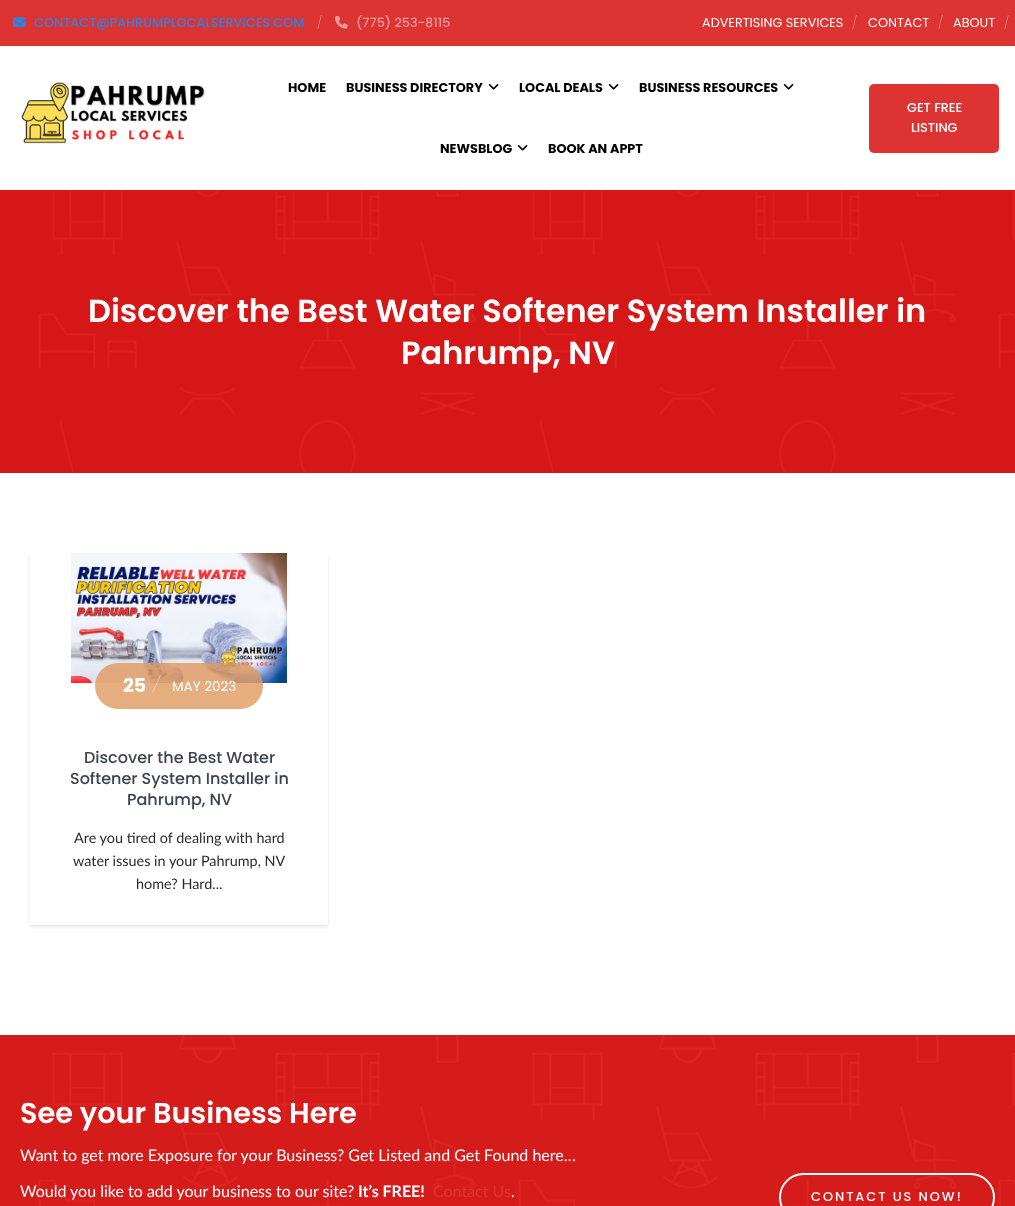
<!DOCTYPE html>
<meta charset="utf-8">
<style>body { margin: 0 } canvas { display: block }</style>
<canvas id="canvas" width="1015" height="1206"></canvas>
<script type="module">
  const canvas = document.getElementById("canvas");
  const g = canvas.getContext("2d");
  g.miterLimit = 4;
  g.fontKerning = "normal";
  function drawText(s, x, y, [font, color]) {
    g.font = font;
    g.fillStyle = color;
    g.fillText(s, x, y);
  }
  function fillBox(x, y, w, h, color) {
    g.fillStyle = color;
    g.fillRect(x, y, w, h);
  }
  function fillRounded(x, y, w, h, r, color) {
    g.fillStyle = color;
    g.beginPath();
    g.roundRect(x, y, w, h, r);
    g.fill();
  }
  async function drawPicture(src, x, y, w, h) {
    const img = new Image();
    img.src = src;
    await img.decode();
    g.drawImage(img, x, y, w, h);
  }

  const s1 = ["500 12.8px Poppins", "#2D83E3"];
  const s2 = ["200 12.8px Poppins", "#EE9999"];
  const s3 = ["500 12.8px Poppins", "#EE9999"];
  const s4 = ["12.8px Poppins", "#FFFFFF"];
  const s5 = ["bold 12.8px Poppins", "#000000"];
  const s6 = ["500 12.8px Poppins", "#FFFFFF"];
  const s7 = ["600 32px Poppins", "#FFFFFF"];
  const s8 = ["bold 19px Poppins", "#FFFFFF"];
  const s9 = ["13.5px Poppins", "#FFFFFF"];
  const s10 = ["500 16px Poppins", "#3C4452"];
  const s11 = ["14.4px Lato", "#2B2B2B"];
  const s12 = ["600 28.75px Poppins", "#FFFFFF"];
  const s13 = ["16px Lato", "#FFFFFF"];
  const s14 = ["bold 16px Lato", "#FFFFFF"];
  const s15 = ["16px Lato", "#DD3333"];

  fillBox(0, 0, 1015, 1206, "#FFFFFF");
  fillBox(0, 0, 1015, 46, "#DD3333");
  await drawPicture("pic1.png", 13, 17, 13, 10);
  drawText("CONTACT@PAHRUMPLOCALSERVICES.COM", 34, 27, s1);
  drawText("/", 317, 27, s2);
  await drawPicture("pic2.png", 335, 15, 13, 14);
  drawText("(775) 253-8115", 356, 27, s3);
  drawText("ADVERTISING SERVICES", 702, 27, s4);
  drawText("/", 852, 27, s2);
  drawText("CONTACT", 868, 27, s4);
  drawText("/", 938, 27, s2);
  drawText("ABOUT", 953, 27, s4);
  drawText("/", 1004, 27, s2);
  await drawPicture("pic3.png", 21, 82, 184, 62);
  drawText("HOME", 288, 92, s5);
  drawText("BUSINESS DIRECTORY", 346, 92, s5);
  await drawPicture("pic4.png", 488, 84, 11, 6);
  drawText("LOCAL DEALS", 519, 92, s5);
  await drawPicture("pic4.png", 608, 84, 11, 6);
  drawText("BUSINESS RESOURCES", 639, 92, s5);
  await drawPicture("pic4.png", 783, 84, 11, 6);
  drawText("NEWSBLOG", 440, 153, s5);
  await drawPicture("pic4.png", 517, 145, 11, 6);
  drawText("BOOK AN APPT", 548, 153, s5);
  fillRounded(869, 84, 130, 69, 5, "#DD3333");
  drawText("GET FREE", 907, 112, s6);
  drawText("LISTING", 911, 132, s6);
  fillBox(0, 190, 1015, 283, "#DD1818");
  await drawPicture("pic5.png", 0, 190, 1015, 283);
  drawText("Discover the Best Water Softener System Installer in", 88, 322, s7);
  drawText("Pahrump, NV", 401, 364, s7);
  g.save();
  g.beginPath();
  g.moveTo(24, 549);
  g.lineTo(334, 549);
  g.lineTo(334, 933);
  g.lineTo(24, 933);
  g.closePath();
  g.moveTo(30, 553);
  g.lineTo(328, 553);
  g.lineTo(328, 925);
  g.lineTo(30, 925);
  g.closePath();
  g.clip("evenodd");
  g.fillStyle = "rgba(0, 1, 17, 0.1)";
  g.filter = "blur(1.5px)";
  g.beginPath();
  g.rect(30, 555, 298, 372);
  g.fill();
  g.filter = "none";
  g.restore();
  await drawPicture("pic6.png", 71, 553, 216, 130);
  fillRounded(95, 663, 168, 46, 23, "rgba(224, 152, 94, 0.8)");
  drawText("25", 123, 692, s8);
  g.fillStyle = "rgba(255, 255, 255, 0.3)";
  g.beginPath();
  g.moveTo(160, 675);
  g.lineTo(161, 675.5);
  g.lineTo(153, 692.5);
  g.lineTo(152, 692);
  g.closePath();
  g.fill();
  drawText("MAY 2023", 172, 691, s9);
  drawText("Discover the Best Water", 84, 763, s10);
  drawText("Softener System Installer in", 70, 784, s10);
  drawText("Pahrump, NV", 127, 805, s10);
  drawText("Are you tired of dealing with hard", 74, 843, s11);
  drawText("water issues in your Pahrump, NV", 73, 866, s11);
  drawText("home? Hard...", 136, 889, s11);
  fillBox(0, 1035, 1015, 171, "#DD1C1C");
  await drawPicture("pic7.png", 0, 1035, 1015, 171);
  drawText("See your Business Here", 20, 1123, s12);
  drawText("Want to get more Exposure for your Business? Get Listed and Get Found here…", 20, 1161, s13);
  drawText("Would you like to add your business to our site?", 20, 1197, s13);
  drawText("It’s FREE!", 358, 1197, s14);
  drawText("Contact Us", 433, 1197, s15);
  drawText(".", 511, 1197, s13);
  g.beginPath();
  g.roundRect(780, 1174, 214, 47, 23.5);
  g.strokeStyle = "#FFFFFF";
  g.lineWidth = 2;
  g.stroke();
  g.letterSpacing = "2px";
  drawText("CONTACT US NOW!", 811, 1201, s6);
</script>
